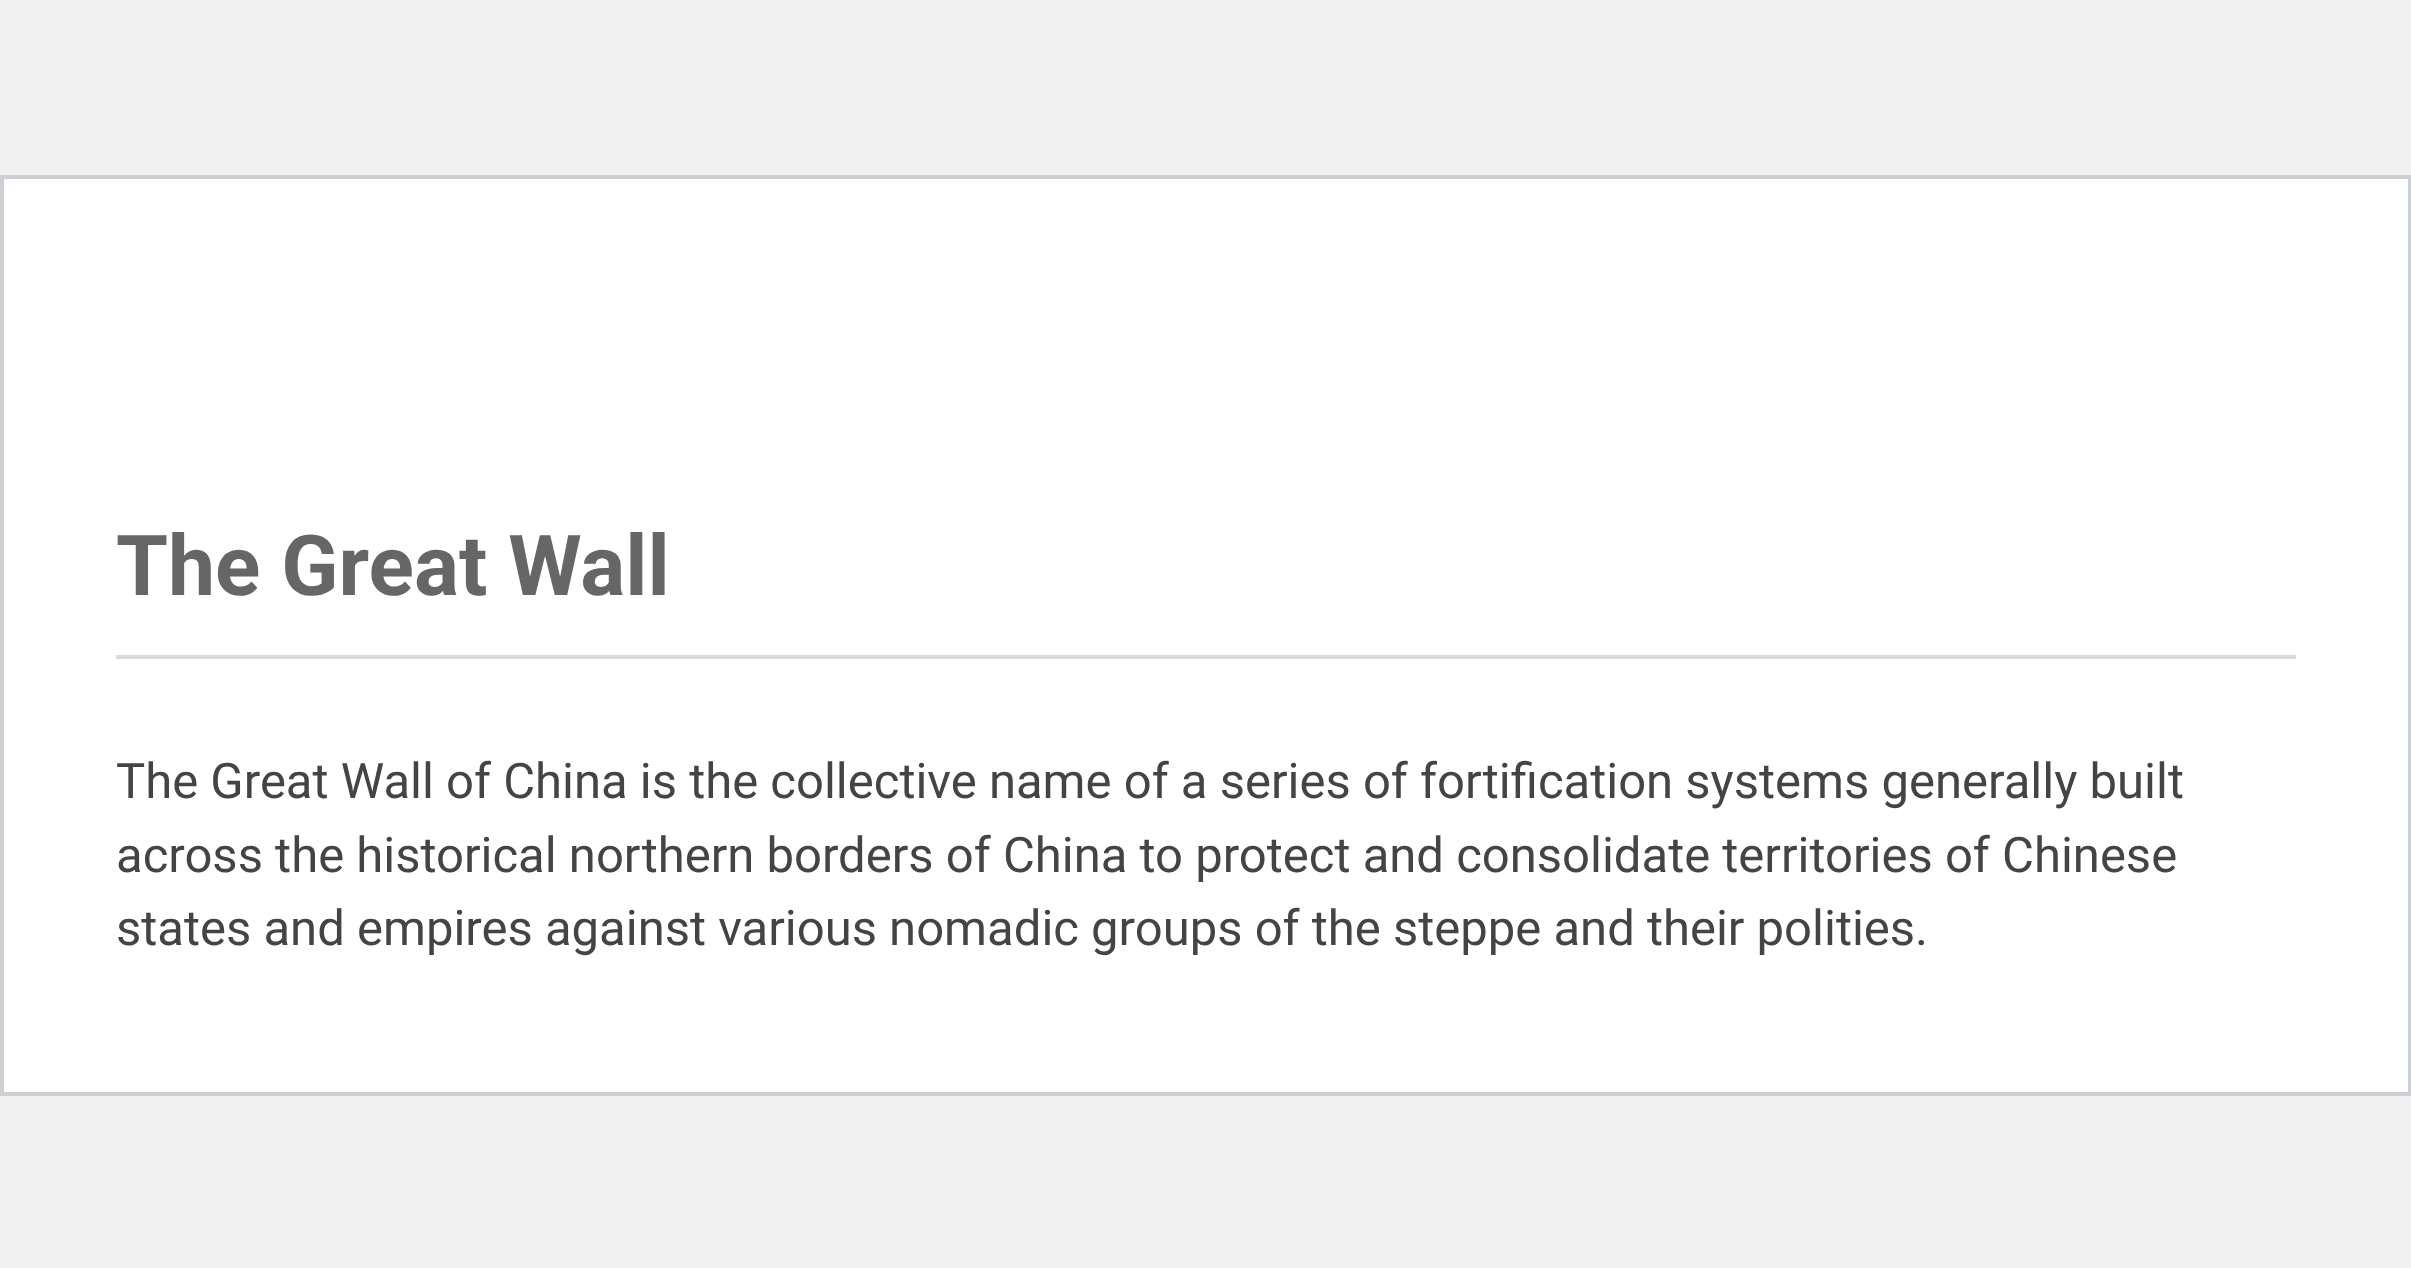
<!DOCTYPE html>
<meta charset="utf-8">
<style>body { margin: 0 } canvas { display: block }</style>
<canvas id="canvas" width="2411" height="1268"></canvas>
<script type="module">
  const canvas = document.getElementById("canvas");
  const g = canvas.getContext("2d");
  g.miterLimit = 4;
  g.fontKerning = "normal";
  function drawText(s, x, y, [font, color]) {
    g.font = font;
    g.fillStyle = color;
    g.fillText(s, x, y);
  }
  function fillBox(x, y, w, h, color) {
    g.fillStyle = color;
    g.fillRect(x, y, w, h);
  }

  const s1 = ["bold 84px Roboto", "#666666"];
  const s2 = ["49px Roboto", "#444444"];

  fillBox(0, 0, 2411, 1268, "#F1F1F1");
  g.fillStyle = "#FFFFFF";
  g.beginPath();
  g.rect(2, 177, 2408, 917);
  g.fill();
  g.strokeStyle = "#CCD0D4";
  g.lineWidth = 4;
  g.stroke();
  fillBox(116, 655, 2180, 4, "#DADADA");
  drawText("The Great Wall", 116, 595, s1);
  drawText("The Great Wall of China is the collective name of a series of fortification systems generally built", 116, 798, s2);
  drawText("across the historical northern borders of China to protect and consolidate territories of Chinese", 116, 872, s2);
  drawText("states and empires against various nomadic groups of the steppe and their polities.", 116, 945, s2);
</script>
